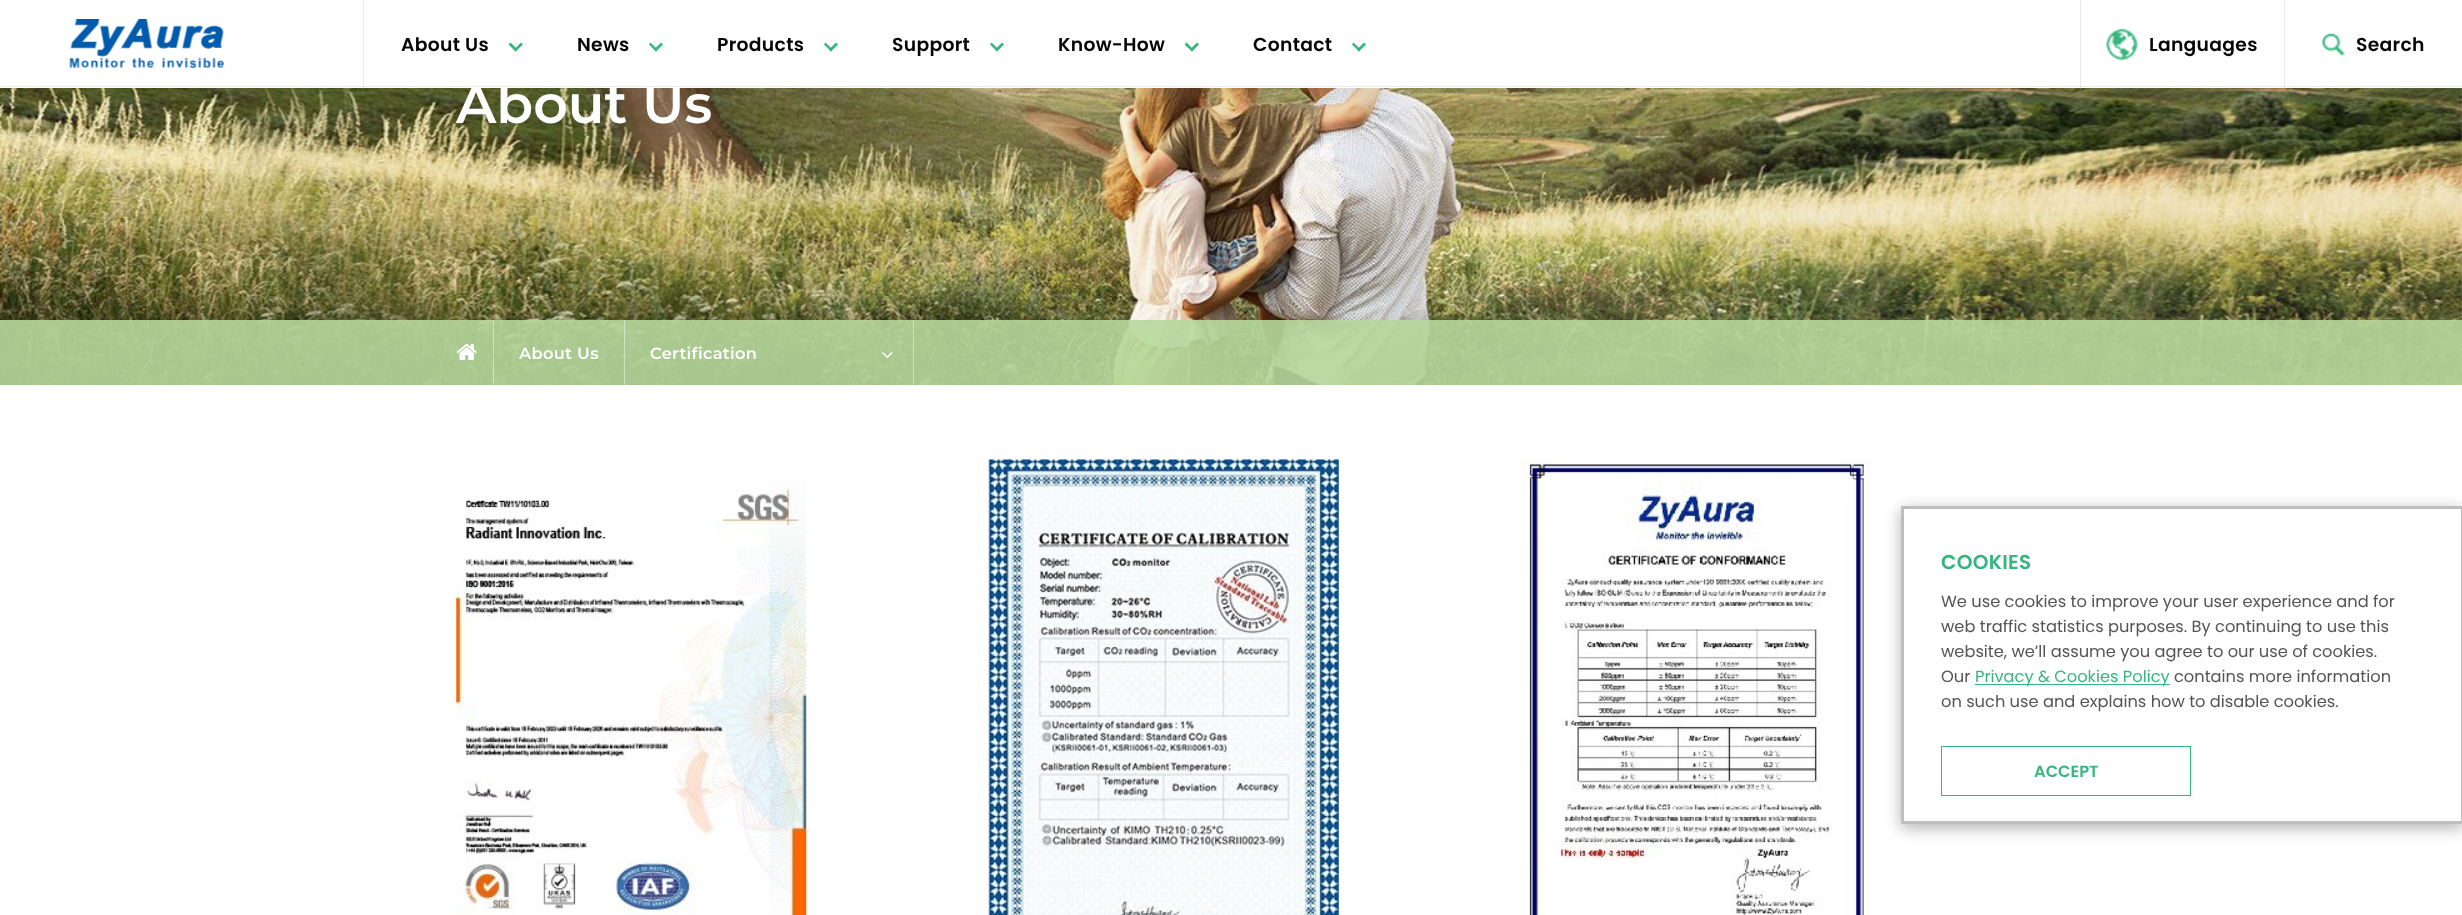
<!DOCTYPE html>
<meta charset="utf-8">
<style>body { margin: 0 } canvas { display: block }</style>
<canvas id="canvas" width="2462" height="915"></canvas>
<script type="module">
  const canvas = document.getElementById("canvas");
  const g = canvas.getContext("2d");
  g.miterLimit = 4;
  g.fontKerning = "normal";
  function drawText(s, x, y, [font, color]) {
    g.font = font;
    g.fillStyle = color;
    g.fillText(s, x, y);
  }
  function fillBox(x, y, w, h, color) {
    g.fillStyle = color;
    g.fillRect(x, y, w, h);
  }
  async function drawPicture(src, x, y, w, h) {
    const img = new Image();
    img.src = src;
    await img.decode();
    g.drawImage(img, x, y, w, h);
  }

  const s1 = ["600 53.75px Montserrat", "#FFFFFF"];
  const s2 = ["600 18.75px Poppins", "#060606"];
  const s3 = ["600 16.25px Montserrat", "#FFFFFF"];
  const s4 = ["600 20px Poppins", "#35B67E"];
  const s5 = ["16.25px Poppins", "#545454"];
  const s6 = ["16.25px Poppins", "#35B67E"];
  const s7 = ["600 16.25px Poppins", "#35B67E"];

  fillBox(0, 0, 2462, 915, "#FFFFFF");
  await drawPicture("pic4.png", 0, 88, 2462, 297);
  g.fillStyle = "rgba(0, 0, 0, 0.05)";
  g.filter = "blur(19px)";
  g.beginPath();
  g.rect(0, 0, 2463, 88);
  g.fill();
  g.filter = "none";
  fillBox(0, 0, 2462, 88, "#FFFFFF");
  drawText("About Us", 456, 123, s1);
  fillBox(0, 86, 2462, 1, "#E9E9E9");
  await drawPicture("pic1.png", 69, 19, 156, 49);
  fillBox(363, 0, 1, 89, "rgba(199, 199, 199, 0.4)");
  g.letterSpacing = "0.3px";
  drawText("About Us", 401, 51, s2);
  g.fillStyle = "#35B67E";
  g.beginPath();
  g.moveTo(521, 42.5);
  g.lineTo(523, 44.5);
  g.lineTo(515.5, 51.5);
  g.lineTo(514, 49.5);
  g.closePath();
  g.fill();
  g.beginPath();
  g.moveTo(510.5, 42.5);
  g.lineTo(517.5, 49.5);
  g.lineTo(515.5, 51.5);
  g.lineTo(508.5, 44.5);
  g.closePath();
  g.fill();
  drawText("News", 577, 51, s2);
  g.fillStyle = "#35B67E";
  g.beginPath();
  g.moveTo(661, 42.5);
  g.lineTo(663, 44.5);
  g.lineTo(656, 51.5);
  g.lineTo(654, 49.5);
  g.closePath();
  g.fill();
  g.beginPath();
  g.moveTo(650.5, 42.5);
  g.lineTo(657.5, 49.5);
  g.lineTo(656, 51.5);
  g.lineTo(649, 44.5);
  g.closePath();
  g.fill();
  drawText("Products", 717, 51, s2);
  g.fillStyle = "#35B67E";
  g.beginPath();
  g.moveTo(836, 42.5);
  g.lineTo(838, 44.5);
  g.lineTo(831, 51.5);
  g.lineTo(829, 49.5);
  g.closePath();
  g.fill();
  g.beginPath();
  g.moveTo(825.5, 42.5);
  g.lineTo(832.5, 49.5);
  g.lineTo(831, 51.5);
  g.lineTo(824, 44.5);
  g.closePath();
  g.fill();
  drawText("Support", 892, 51, s2);
  g.fillStyle = "#35B67E";
  g.beginPath();
  g.moveTo(1002, 42.5);
  g.lineTo(1004, 44.5);
  g.lineTo(997, 51.5);
  g.lineTo(995, 49.5);
  g.closePath();
  g.fill();
  g.beginPath();
  g.moveTo(991.5, 42.5);
  g.lineTo(998.5, 49.5);
  g.lineTo(997, 51.5);
  g.lineTo(990, 44.5);
  g.closePath();
  g.fill();
  drawText("Know-How", 1058, 51, s2);
  g.fillStyle = "#35B67E";
  g.beginPath();
  g.moveTo(1197, 42.5);
  g.lineTo(1199, 44.5);
  g.lineTo(1192, 51.5);
  g.lineTo(1190, 49.5);
  g.closePath();
  g.fill();
  g.beginPath();
  g.moveTo(1186.5, 42.5);
  g.lineTo(1193.5, 49.5);
  g.lineTo(1192, 51.5);
  g.lineTo(1184.5, 44.5);
  g.closePath();
  g.fill();
  drawText("Contact", 1253, 51, s2);
  g.fillStyle = "#35B67E";
  g.beginPath();
  g.moveTo(1364, 42.5);
  g.lineTo(1366, 44.5);
  g.lineTo(1359, 51.5);
  g.lineTo(1357, 49.5);
  g.closePath();
  g.fill();
  g.beginPath();
  g.moveTo(1353.5, 42.5);
  g.lineTo(1360.5, 49.5);
  g.lineTo(1359, 51.5);
  g.lineTo(1352, 44.5);
  g.closePath();
  g.fill();
  fillBox(2080, 0, 1, 89, "rgba(199, 199, 199, 0.4)");
  await drawPicture("pic2.png", 2105, 28, 33, 33);
  drawText("Languages", 2149, 51, s2);
  fillBox(2284, 0, 1, 89, "rgba(199, 199, 199, 0.4)");
  await drawPicture("pic3.png", 2322, 33, 23, 23);
  drawText("Search", 2356, 51, s2);
  fillBox(0, 320, 2462, 65, "rgba(182, 216, 156, 0.9)");
  fillBox(493, 320, 1, 65, "rgba(255, 255, 255, 0.45)");
  await drawPicture("pic5.png", 456, 343, 21, 17);
  fillBox(624, 320, 1, 65, "rgba(255, 255, 255, 0.45)");
  drawText("About Us", 519, 359, s3);
  fillBox(913, 320, 1, 65, "rgba(255, 255, 255, 0.45)");
  drawText("Certification", 650, 359, s3);
  await drawPicture("pic6.png", 882, 352, 11, 6);
  await drawPicture("pic7.png", 456, 479, 351, 436);
  await drawPicture("pic8.png", 988, 459, 351, 456);
  await drawPicture("pic9.png", 1521, 459, 350, 456);
  g.fillStyle = "rgba(0, 0, 0, 0.3)";
  g.filter = "blur(8px)";
  g.beginPath();
  g.rect(1901, 510, 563, 318);
  g.fill();
  g.filter = "none";
  g.fillStyle = "#FFFFFF";
  g.beginPath();
  g.rect(1902.5, 507.5, 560, 315);
  g.fill();
  g.strokeStyle = "#BEBEBE";
  g.lineWidth = 3;
  g.stroke();
  drawText("COOKIES", 1941, 569, s4);
  g.letterSpacing = "0px";
  drawText("We use cookies to improve your user experience and for", 1941, 607, s5);
  drawText("web traffic statistics purposes. By continuing to use this", 1941, 632, s5);
  drawText("website, we’ll assume you agree to our use of cookies.", 1941, 657, s5);
  drawText("Our", 1941, 682, s5);
  fillBox(1975, 684, 195, 1, "#35B67E");
  drawText("Privacy & Cookies Policy", 1975, 682, s6);
  drawText("contains more information", 2174, 682, s5);
  drawText("on such use and explains how to disable cookies.", 1941, 707, s5);
  g.strokeStyle = "#35B67E";
  g.lineWidth = 1;
  g.strokeRect(1941.5, 746.5, 249, 49);
  drawText("ACCEPT", 2034, 777, s7);
</script>
